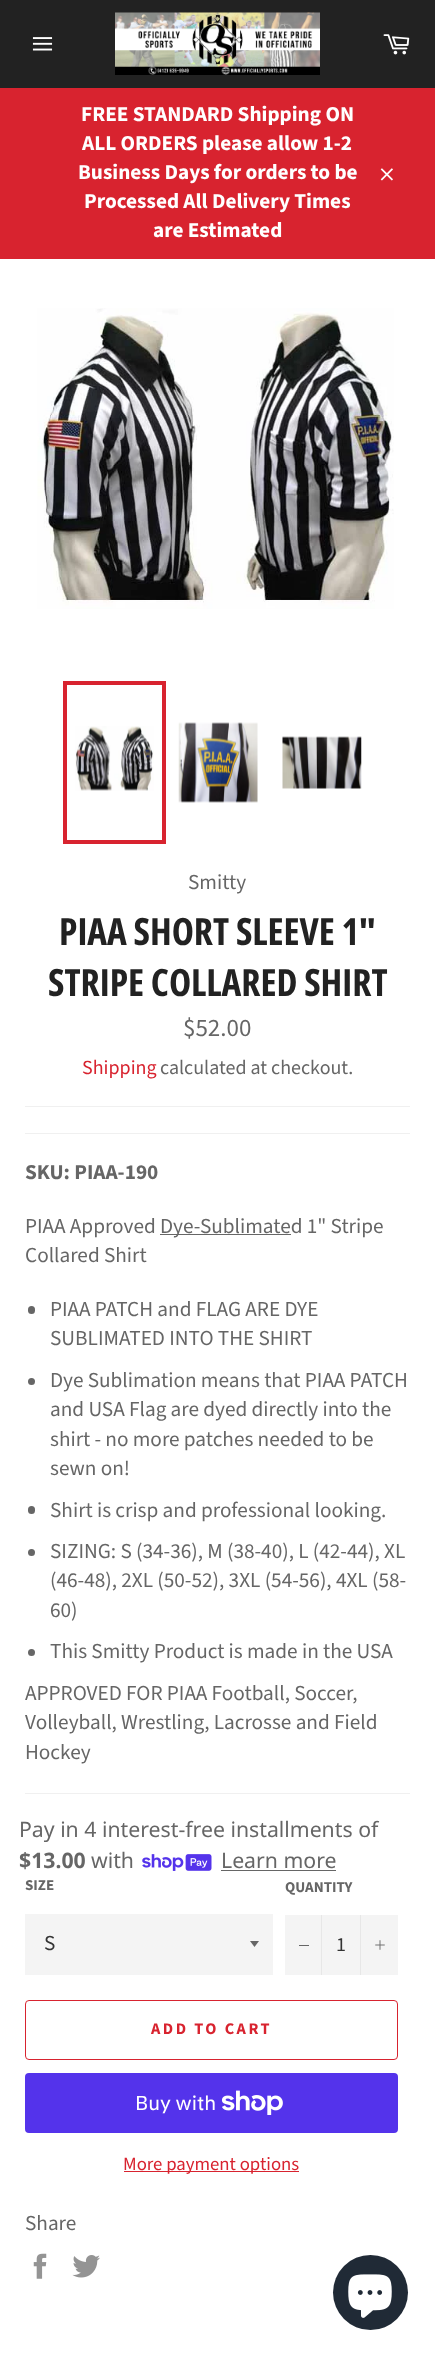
<!DOCTYPE html>
<meta charset="utf-8">
<style>body { margin: 0 } canvas { display: block }</style>
<canvas id="canvas" width="435" height="2356"></canvas>
<script type="module">
  const canvas = document.getElementById("canvas");
  const g = canvas.getContext("2d");
  g.miterLimit = 4;
  g.fontKerning = "normal";
  function drawText(s, x, y, [font, color]) {
    g.font = font;
    g.fillStyle = color;
    g.fillText(s, x, y);
  }
  function fillBox(x, y, w, h, color) {
    g.fillStyle = color;
    g.fillRect(x, y, w, h);
  }
  function fillRounded(x, y, w, h, r, color) {
    g.fillStyle = color;
    g.beginPath();
    g.roundRect(x, y, w, h, r);
    g.fill();
  }
  async function drawPicture(src, x, y, w, h) {
    const img = new Image();
    img.src = src;
    await img.decode();
    g.drawImage(img, x, y, w, h);
  }

  const s1 = ["bold 21.25px Source Sans Pro", "#FFFFFF"];
  const s2 = ["21.25px Source Sans Pro", "#666666"];
  const s3 = ["bold 37.5px Open Sans Condensed", "#222222"];
  const s4 = ["25px Source Sans Pro", "#666666"];
  const s5 = ["20px Source Sans Pro", "#D8232F"];
  const s6 = ["20px Source Sans Pro", "#666666"];
  const s7 = ["bold 21.25px Source Sans Pro", "#666666"];
  const s8 = ["21.25px Noto Sans", "#666666"];
  const s9 = ["bold 21.25px Noto Sans", "#666666"];
  const s10 = ["bold 15px Source Sans Pro", "#666666"];
  const s11 = ["21.25px Source Sans Pro", "#333333"];
  const s12 = ["20px Source Sans Pro", "#333333"];
  const s13 = ["bold 16.25px Source Sans Pro", "#D8232F"];
  const s14 = ["20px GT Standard", "#FFFFFF"];
  const s15 = ["18.75px Source Sans Pro", "#D8232F"];

  fillBox(0, 0, 435, 2356, "#222222");
  await drawPicture("pic1.png", 32, 37, 21, 14);
  await drawPicture("pic2.png", 115, 12, 205, 63);
  await drawPicture("pic3.png", 383, 34, 27, 21);
  fillBox(0, 88, 435, 171, "#D8232F");
  drawText("FREE STANDARD Shipping ON", 81, 121, s1);
  drawText("ALL ORDERS please allow 1-2", 82, 150, s1);
  drawText("Business Days for orders to be", 78, 179, s1);
  drawText("Processed All Delivery Times", 84, 208, s1);
  drawText("are Estimated", 153, 237, s1);
  await drawPicture("pic4.png", 380, 168, 13, 13);
  fillBox(0, 259, 435, 2097, "#FFFFFF");
  await drawPicture("pic5.png", 37, 308, 357, 301);
  await drawPicture("pic6.png", 75, 726, 79, 65);
  g.strokeStyle = "#D8232F";
  g.lineWidth = 4;
  g.strokeRect(65, 683, 99, 159);
  await drawPicture("pic7.png", 178, 722, 80, 81);
  await drawPicture("pic8.png", 282, 736, 80, 53);
  drawText("Smitty", 188, 889, s2);
  drawText("PIAA SHORT SLEEVE 1\"", 59, 945, s3);
  drawText("STRIPE COLLARED SHIRT", 48, 996, s3);
  drawText("$52.00", 183, 1036, s4);
  drawText("Shipping", 82, 1074, s5);
  drawText("calculated at checkout.", 160, 1074, s6);
  fillBox(25, 1106, 385, 1, "#F0F0F0");
  fillBox(25, 1133, 385, 1, "#F0F0F0");
  drawText("SKU: PIAA-190", 25, 1179, s7);
  drawText("PIAA Approved", 25, 1233, s2);
  fillBox(160, 1234, 131, 1, "#666666");
  drawText("Dye-Sublimated 1\" Stripe", 160, 1233, s2);
  drawText("Collared Shirt", 25, 1262, s2);
  fillRounded(28, 1306, 7, 8, 3.5, "#666666");
  drawText("PIAA PATCH and FLAG ARE DYE", 50, 1316, s2);
  drawText("SUBLIMATED INTO THE SHIRT", 50, 1345, s2);
  g.beginPath();
  g.arc(31.5, 1381.5, 3.5, 0, Math.PI * 2);
  g.fill();
  drawText("Dye Sublimation means that PIAA PATCH", 50, 1387, s2);
  drawText("and USA Flag are dyed directly into the", 50, 1416, s2);
  drawText("shirt - no more patches needed to be", 50, 1446, s2);
  drawText("sewn on!", 50, 1475, s2);
  fillRounded(28, 1506, 7, 8, 3.5, "#666666");
  drawText("Shirt is crisp and professional looking.", 50, 1517, s2);
  g.beginPath();
  g.arc(31.5, 1552.5, 3.5, 0, Math.PI * 2);
  g.fill();
  drawText("SIZING: S (34-36), M (38-40), L (42-44), XL", 50, 1558, s2);
  drawText("(46-48), 2XL (50-52), 3XL (54-56), 4XL (58-", 50, 1587, s2);
  drawText("60)", 50, 1617, s2);
  g.beginPath();
  g.arc(31.5, 1652.5, 3.5, 0, Math.PI * 2);
  g.fill();
  drawText("This Smitty Product is made in the USA", 50, 1658, s2);
  drawText("APPROVED FOR PIAA Football, Soccer,", 25, 1700, s2);
  drawText("Volleyball, Wrestling, Lacrosse and Field", 25, 1729, s2);
  drawText("Hockey", 25, 1759, s2);
  fillBox(25, 1793, 385, 1, "#F0F0F0");
  drawText("Pay in 4 interest-free installments of", 19, 1837, s8);
  drawText("$13.00", 19, 1868, s9);
  drawText("with", 91, 1868, s8);
  await drawPicture("pic9.png", 142, 1854, 70, 17);
  drawText("Learn more", 221, 1868, s8);
  fillBox(221, 1870, 115, 1, "#666666");
  drawText("SIZE", 25, 1890, s10);
  fillBox(25, 1914, 248, 61, "#F4F4F4");
  g.fillStyle = "#666666";
  g.beginPath();
  g.moveTo(250, 1941);
  g.lineTo(254.5, 1947);
  g.lineTo(259, 1941);
  g.closePath();
  g.fill();
  drawText("S", 44, 1950, s11);
  drawText("QUANTITY", 285, 1892, s10);
  fillBox(285, 1915, 113, 60, "#F4F4F4");
  fillBox(321, 1915, 1, 60, "#E7E7E7");
  fillBox(299, 1945, 10, 1, "#666666");
  drawText("1", 336, 1951, s12);
  fillBox(360, 1915, 1, 60, "#E7E7E7");
  await drawPicture("pic10.png", 375, 1940, 10, 10);
  g.beginPath();
  g.roundRect(25.5, 2000.5, 372, 59, 3.5);
  g.lineWidth = 1;
  g.stroke();
  g.letterSpacing = "2.5px";
  drawText("ADD TO CART", 151, 2034, s13);
  fillRounded(25, 2073, 373, 60, 4, "#5433EB");
  g.letterSpacing = "0px";
  drawText("Buy with", 135, 2110, s14);
  await drawPicture("pic11.png", 221, 2090, 62, 25);
  fillBox(124, 2171, 175, 1, "#D8232F");
  drawText("More payment options", 123, 2170, s15);
  drawText("Share", 25, 2230, s2);
  await drawPicture("pic12.png", 33, 2253, 14, 26);
  await drawPicture("pic13.png", 72, 2255, 28, 23);
  g.fillStyle = "#202A36";
  g.beginPath();
  g.arc(370.5, 2292.5, 37.5, 0, Math.PI * 2);
  g.fill();
  await drawPicture("pic14.png", 348, 2274, 44, 44);
</script>
